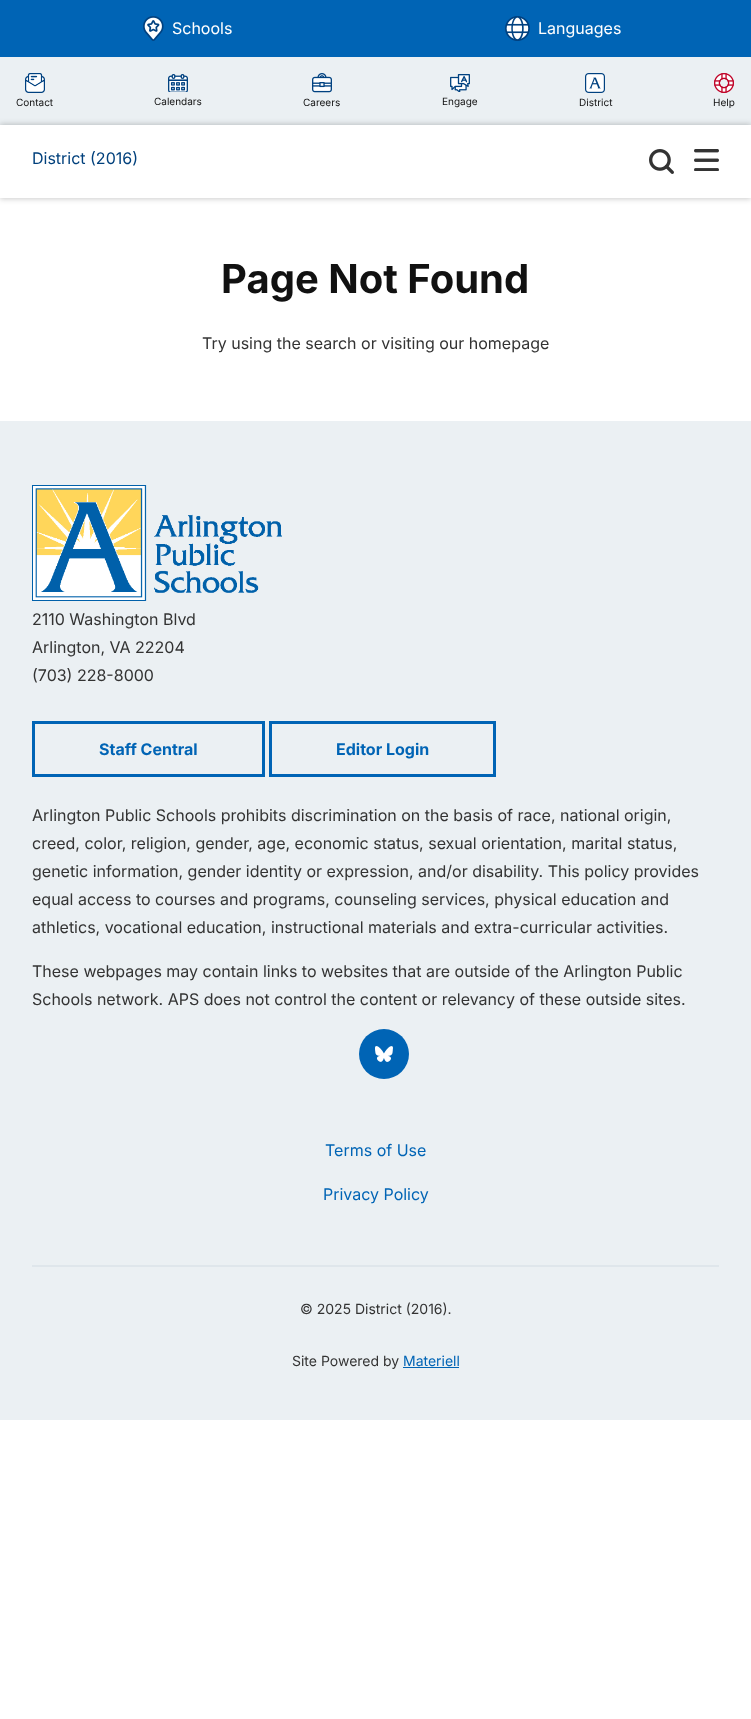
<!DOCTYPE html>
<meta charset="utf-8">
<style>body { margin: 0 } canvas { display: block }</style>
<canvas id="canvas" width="751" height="1719"></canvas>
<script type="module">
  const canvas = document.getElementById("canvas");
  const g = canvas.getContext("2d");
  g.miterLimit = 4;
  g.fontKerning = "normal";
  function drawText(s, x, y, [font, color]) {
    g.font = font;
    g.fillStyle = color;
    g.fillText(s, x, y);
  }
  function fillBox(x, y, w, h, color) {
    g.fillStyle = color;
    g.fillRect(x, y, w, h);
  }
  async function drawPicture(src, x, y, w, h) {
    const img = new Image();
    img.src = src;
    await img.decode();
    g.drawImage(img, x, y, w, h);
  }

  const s1 = ["16px Inter", "#FFFFFF"];
  const s2 = ["10px Inter", "#111111"];
  const s3 = ["16px Inter", "#00407C"];
  const s4 = ["bold 40px Inter", "#111111"];
  const s5 = ["16px Inter", "#333333"];
  const s6 = ["bold 16px Inter", "#0064B5"];
  const s7 = ["16px Inter", "#0064B5"];
  const s8 = ["14px Inter", "#333333"];
  const s9 = ["14px Inter", "#0064B5"];

  fillBox(0, 0, 751, 1719, "#FFFFFF");
  fillBox(0, 0, 751, 57, "#0064B5");
  await drawPicture("pic1.png", 143, 16, 21, 25);
  drawText("Schools", 172, 34, s1);
  await drawPicture("pic2.png", 505, 16, 25, 25);
  drawText("Languages", 538, 34, s1);
  fillBox(0, 57, 751, 68, "#EBF0F3");
  await drawPicture("pic3.png", 25, 73, 20, 20);
  drawText("Contact", 16, 106, s2);
  await drawPicture("pic4.png", 168, 74, 20, 18);
  drawText("Calendars", 154, 105, s2);
  await drawPicture("pic5.png", 312, 73, 20, 20);
  drawText("Careers", 303, 106, s2);
  await drawPicture("pic6.png", 450, 74, 20, 18);
  drawText("Engage", 442, 105, s2);
  await drawPicture("pic7.png", 585, 73, 20, 20);
  drawText("District", 579, 106, s2);
  await drawPicture("pic8.png", 714, 73, 20, 20);
  drawText("Help", 713, 106, s2);
  g.save();
  g.beginPath();
  g.moveTo(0, 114);
  g.lineTo(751, 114);
  g.lineTo(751, 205);
  g.lineTo(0, 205);
  g.closePath();
  g.moveTo(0, 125);
  g.lineTo(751, 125);
  g.lineTo(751, 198);
  g.lineTo(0, 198);
  g.closePath();
  g.clip("evenodd");
  g.fillStyle = "rgba(0, 0, 0, 0.13)";
  g.filter = "blur(2.5px)";
  g.beginPath();
  g.rect(0, 123, 751, 73);
  g.fill();
  g.filter = "none";
  g.restore();
  g.save();
  g.beginPath();
  g.moveTo(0, 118);
  g.lineTo(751, 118);
  g.lineTo(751, 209);
  g.lineTo(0, 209);
  g.closePath();
  g.moveTo(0, 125);
  g.lineTo(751, 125);
  g.lineTo(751, 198);
  g.lineTo(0, 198);
  g.closePath();
  g.clip("evenodd");
  g.fillStyle = "rgba(0, 0, 0, 0.13)";
  g.filter = "blur(2.5px)";
  g.beginPath();
  g.rect(0, 127, 751, 73);
  g.fill();
  g.filter = "none";
  g.restore();
  drawText("District (2016)", 32, 164, s3);
  await drawPicture("pic9.png", 649, 149, 25, 25);
  await drawPicture("pic10.png", 694, 149, 25, 22);
  drawText("Page Not Found", 221, 293, s4);
  drawText("Try using the search or visiting our homepage", 202, 349, s5);
  fillBox(0, 421, 751, 999, "#EBF0F3");
  await drawPicture("pic11.png", 32, 485, 250, 116);
  drawText("2110 Washington Blvd", 32, 625, s5);
  drawText("Arlington, VA 22204", 32, 653, s5);
  drawText("(703) 228-8000", 32, 681, s5);
  g.strokeStyle = "#0064B5";
  g.lineWidth = 3;
  g.strokeRect(33.5, 722.5, 230, 53);
  drawText("Staff Central", 99, 755, s6);
  g.strokeRect(270.5, 722.5, 224, 53);
  drawText("Editor Login", 336, 755, s6);
  drawText("Arlington Public Schools prohibits discrimination on the basis of race, national origin,", 32, 821, s5);
  drawText("creed, color, religion, gender, age, economic status, sexual orientation, marital status,", 32, 849, s5);
  drawText("genetic information, gender identity or expression, and/or disability. This policy provides", 32, 877, s5);
  drawText("equal access to courses and programs, counseling services, physical education and", 32, 905, s5);
  drawText("athletics, vocational education, instructional materials and extra-curricular activities.", 32, 933, s5);
  drawText("These webpages may contain links to websites that are outside of the Arlington Public", 32, 977, s5);
  drawText("Schools network. APS does not control the content or relevancy of these outside sites.", 32, 1005, s5);
  g.fillStyle = "#0064B5";
  g.beginPath();
  g.arc(384, 1054, 25, 0, Math.PI * 2);
  g.fill();
  await drawPicture("pic12.png", 375, 1046, 18, 16);
  drawText("Terms of Use", 325, 1156, s7);
  drawText("Privacy Policy", 323, 1200, s7);
  fillBox(32, 1265, 687, 2, "#DFE6EB");
  drawText("© 2025 District (2016).", 300, 1314, s8);
  drawText("Site Powered by", 292, 1366, s8);
  drawText("Materiell", 403, 1366, s9);
  fillBox(403, 1367, 56, 1, "#0064B5");
</script>
